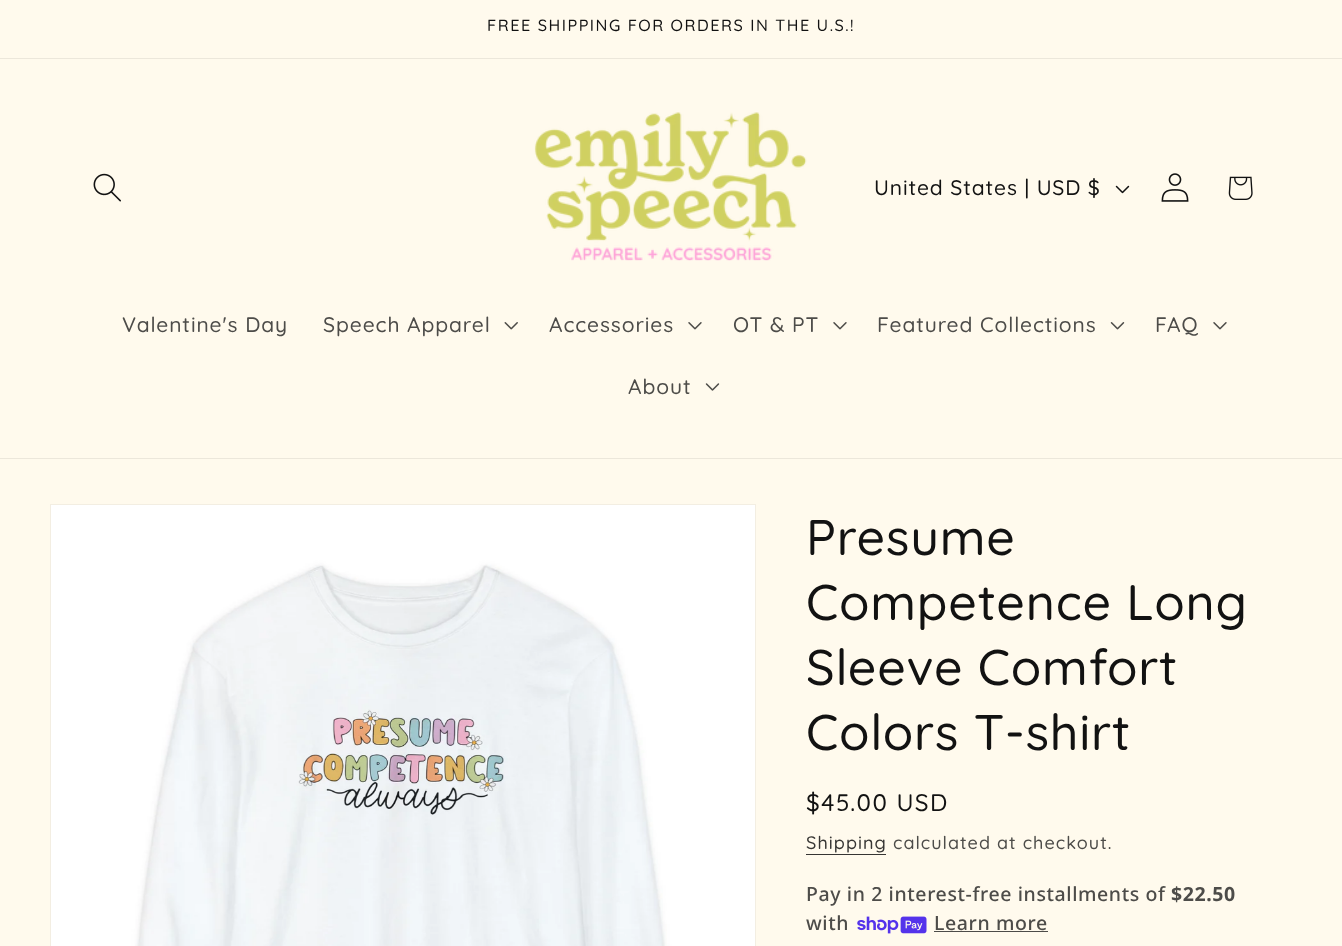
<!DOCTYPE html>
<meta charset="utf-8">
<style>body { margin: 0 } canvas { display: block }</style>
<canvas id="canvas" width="1342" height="946"></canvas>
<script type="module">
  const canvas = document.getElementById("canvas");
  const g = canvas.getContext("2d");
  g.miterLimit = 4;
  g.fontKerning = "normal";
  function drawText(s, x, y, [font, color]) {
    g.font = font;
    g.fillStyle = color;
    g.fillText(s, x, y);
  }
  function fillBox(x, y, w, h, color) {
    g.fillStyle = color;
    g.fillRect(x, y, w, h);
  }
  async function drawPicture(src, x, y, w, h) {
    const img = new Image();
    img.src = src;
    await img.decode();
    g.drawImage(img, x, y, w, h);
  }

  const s1 = ["500 16.25px Quicksand", "#121212"];
  const s2 = ["500 21px Quicksand", "#121212"];
  const s3 = ["500 21px Quicksand", "#4D4C49"];
  const s4 = ["500 50px Quicksand", "#121212"];
  const s5 = ["500 24px Quicksand", "#121212"];
  const s6 = ["500 18px Quicksand", "#363533"];
  const s7 = ["500 18px Quicksand", "#4D4C49"];
  const s8 = ["500 19.5px Noto Sans", "#4D4C49"];
  const s9 = ["bold 19.5px Noto Sans", "#4D4C49"];

  fillBox(0, 0, 1342, 946, "#FFFAED");
  fillBox(0, 58, 1342, 1, "#ECE7DB");
  g.letterSpacing = "1.5px";
  drawText("FREE SHIPPING FOR ORDERS IN THE U.S.!", 487, 31, s1);
  fillBox(0, 458, 1342, 1, "#ECE7DB");
  await drawPicture("pic1.png", 93, 173, 28, 29);
  await drawPicture("pic2.png", 534, 112, 273, 149);
  g.letterSpacing = "0.9px";
  drawText("United States | USD $", 874, 195, s2);
  await drawPicture("pic3.png", 1115, 185, 15, 9);
  await drawPicture("pic4.png", 1161, 173, 28, 29);
  await drawPicture("pic5.png", 1228, 176, 25, 24);
  drawText("Valentine's Day", 122, 332, s3);
  drawText("Speech Apparel", 323, 332, s3);
  await drawPicture("pic6.png", 504, 322, 14, 8);
  drawText("Accessories", 549, 332, s3);
  await drawPicture("pic7.png", 688, 322, 14, 8);
  drawText("OT & PT", 733, 332, s3);
  await drawPicture("pic7.png", 833, 322, 14, 8);
  drawText("Featured Collections", 877, 332, s3);
  await drawPicture("pic8.png", 1110, 322, 15, 8);
  drawText("FAQ", 1155, 332, s3);
  await drawPicture("pic7.png", 1213, 322, 14, 8);
  drawText("About", 628, 394, s3);
  await drawPicture("pic9.png", 705, 383, 15, 8);
  g.strokeStyle = "#F3EEE2";
  g.strokeRect(50.5, 504.5, 705, 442);
  await drawPicture("pic10.png", 51, 505, 704, 441);
  g.letterSpacing = "0.75px";
  drawText("Presume", 806, 555, s4);
  drawText("Competence Long", 806, 620, s4);
  drawText("Sleeve Comfort", 806, 685, s4);
  drawText("Colors T-shirt", 806, 750, s4);
  g.letterSpacing = "1.5px";
  drawText("$45.00 USD", 806, 811, s5);
  g.letterSpacing = "1.05px";
  drawText("Shipping", 806, 849, s6);
  fillBox(806, 854, 80, 1, "#363533");
  drawText("calculated at checkout.", 893, 849, s7);
  g.letterSpacing = "0.6px";
  drawText("Pay in 2 interest-free installments of", 806, 901, s8);
  drawText("$22.50", 1171, 901, s9);
  drawText("with", 806, 930, s8);
  await drawPicture("pic11.png", 857, 916, 70, 18);
  drawText("Learn more", 934, 930, s8);
  fillBox(934, 931, 114, 1, "#4D4C49");
</script>
